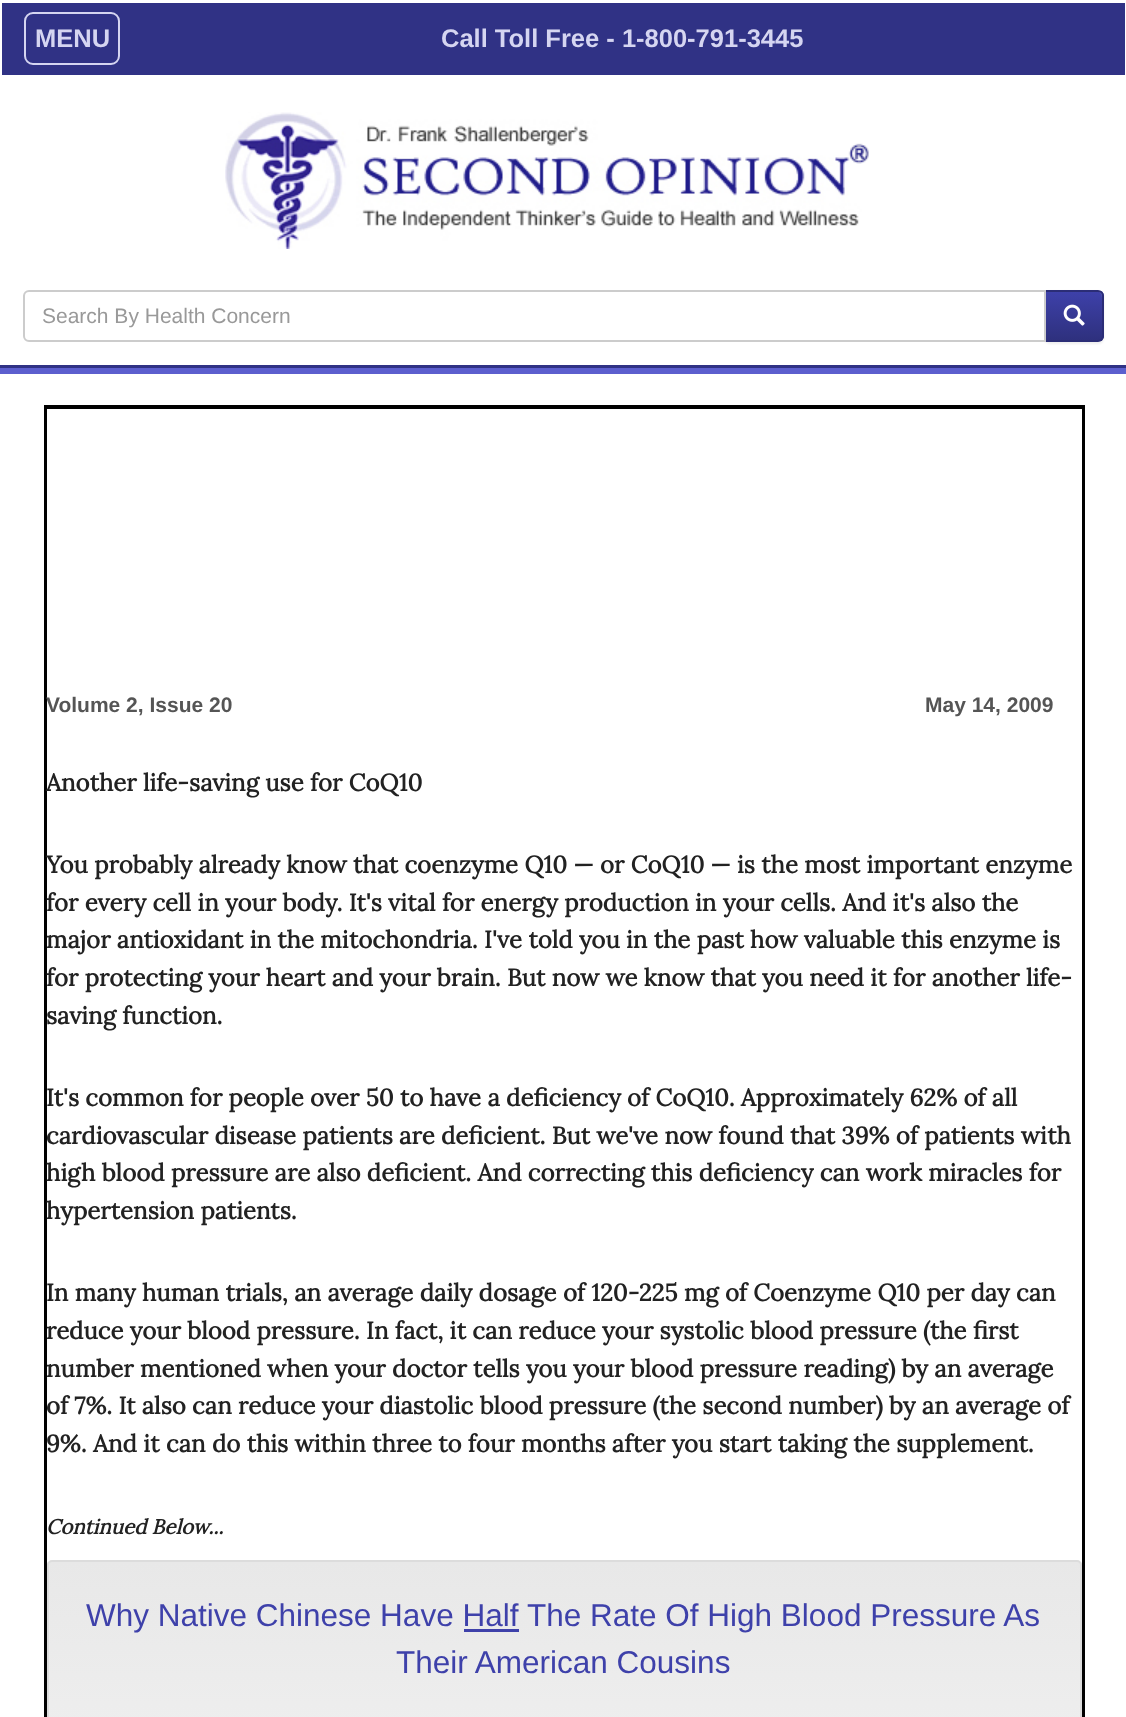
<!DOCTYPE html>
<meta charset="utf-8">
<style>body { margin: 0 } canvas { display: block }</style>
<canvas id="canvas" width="1126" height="1717"></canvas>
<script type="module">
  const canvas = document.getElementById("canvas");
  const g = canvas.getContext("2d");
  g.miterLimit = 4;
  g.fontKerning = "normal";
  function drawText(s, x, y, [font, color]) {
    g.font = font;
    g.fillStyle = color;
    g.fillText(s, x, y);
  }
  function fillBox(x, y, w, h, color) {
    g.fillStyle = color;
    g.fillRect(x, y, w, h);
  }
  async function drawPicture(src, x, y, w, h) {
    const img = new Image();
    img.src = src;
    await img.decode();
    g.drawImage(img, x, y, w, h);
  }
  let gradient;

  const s1 = ["bold 25.5px Liberation Sans", "#D5D5F1"];
  const s2 = ["21px Liberation Sans", "#999999"];
  const s3 = ["bold 21px Liberation Sans", "#555555"];
  const s4 = ["bold 24px Lora", "#222222"];
  const s5 = ["italic bold 20.5px Lora", "#222222"];
  const s6 = ["31.5px Liberation Sans", "#3E41AA"];

  fillBox(0, 0, 1126, 1717, "#FFFFFF");
  fillBox(2, 3, 1123, 72, "#303285");
  g.beginPath();
  g.roundRect(25, 13, 94, 51, 8);
  g.strokeStyle = "#D5D5F1";
  g.lineWidth = 2;
  g.stroke();
  drawText("MENU", 35, 47, s1);
  drawText("Call Toll Free - 1-800-791-3445", 441, 47, s1);
  await drawPicture("pic1.png", 225, 112, 644, 137);
  fillBox(0, 368, 1126, 6, "#5C5FCE");
  fillBox(0, 365, 1126, 3, "#303285");
  g.fillStyle = "rgba(0, 0, 0, 0.07)";
  g.filter = "blur(1px)";
  g.beginPath();
  g.roundRect(1044, 291, 60, 53, 6);
  g.fill();
  g.filter = "none";
  g.save();
  g.beginPath();
  g.roundRect(1044, 290, 60, 52, [0, 6, 6, 0]);
  g.clip();
  gradient = g.createLinearGradient(1074, 291, 1074, 341);
  gradient.addColorStop(0, "#3E41AA");
  gradient.addColorStop(1, "#2E307D");
  g.fillStyle = gradient;
  g.fillRect(1046, 291, 58, 50);
  g.restore();
  g.fillStyle = "rgba(255, 255, 255, 0.15)";
  g.beginPath();
  g.moveTo(1046, 292);
  g.lineTo(1099, 292);
  g.bezierCurveTo(1103, 294, 1102, 301, 1102, 304);
  g.lineTo(1102, 339);
  g.bezierCurveTo(1103, 338, 1103, 337, 1103, 336);
  g.lineTo(1103, 296);
  g.bezierCurveTo(1103, 293, 1101, 291, 1098, 291);
  g.lineTo(1046, 291);
  g.closePath();
  g.fill();
  g.beginPath();
  g.roundRect(1045, 291, 58, 50, [0, 5, 5, 0]);
  g.strokeStyle = "#2B2D76";
  g.stroke();
  g.fillStyle = "#FFFFFF";
  g.beginPath();
  g.roundRect(24, 291, 1021, 50, [5, 0, 0, 5]);
  g.fill();
  g.strokeStyle = "#CCCCCC";
  g.stroke();
  drawText("Search By Health Concern", 42, 323, s2);
  await drawPicture("pic2.png", 1063, 304, 22, 22);
  fillBox(44, 405, 1041, 3, "#000000");
  fillBox(44, 408, 1039, 1, "#000000");
  fillBox(1082, 405, 3, 1312, "#000000");
  fillBox(44, 405, 3, 1312, "#000000");
  drawText("Volume 2, Issue 20", 46, 712, s3);
  drawText("May 14, 2009", 925, 712, s3);
  drawText("Another life-saving use for CoQ10", 46, 791, s4);
  drawText("You probably already know that coenzyme Q10 — or CoQ10 — is the most important enzyme", 46, 873, s4);
  drawText("for every cell in your body. It's vital for energy production in your cells. And it's also the", 46, 911, s4);
  drawText("major antioxidant in the mitochondria. I've told you in the past how valuable this enzyme is", 46, 948, s4);
  drawText("for protecting your heart and your brain. But now we know that you need it for another life-", 46, 986, s4);
  drawText("saving function.", 46, 1024, s4);
  drawText("It's common for people over 50 to have a deficiency of CoQ10. Approximately 62% of all", 46, 1106, s4);
  drawText("cardiovascular disease patients are deficient. But we've now found that 39% of patients with", 46, 1144, s4);
  drawText("high blood pressure are also deficient. And correcting this deficiency can work miracles for", 46, 1181, s4);
  drawText("hypertension patients.", 46, 1219, s4);
  drawText("In many human trials, an average daily dosage of 120-225 mg of Coenzyme Q10 per day can", 46, 1301, s4);
  drawText("reduce your blood pressure. In fact, it can reduce your systolic blood pressure (the first", 46, 1339, s4);
  drawText("number mentioned when your doctor tells you your blood pressure reading) by an average", 46, 1377, s4);
  drawText("of 7%. It also can reduce your diastolic blood pressure (the second number) by an average of", 46, 1414, s4);
  drawText("9%. And it can do this within three to four months after you start taking the supplement.", 46, 1452, s4);
  drawText("Continued Below...", 46, 1534, s5);
  g.save();
  g.beginPath();
  g.roundRect(47, 1560, 1035, 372, 5);
  g.clip();
  gradient = g.createLinearGradient(564, 1562, 564, 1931);
  gradient.addColorStop(0, "#E8E8E8");
  gradient.addColorStop(1, "#F5F5F5");
  g.fillStyle = gradient;
  g.fillRect(47, 1562, 1035, 155);
  g.restore();
  g.beginPath();
  g.roundRect(48, 1561, 1033, 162, 4);
  g.strokeStyle = "#DCDCDC";
  g.stroke();
  drawText("Why Native Chinese Have Half", 86, 1626, s6);
  drawText("The Rate Of High Blood Pressure As", 527, 1626, s6);
  fillBox(464, 1629, 55, 3, "#3E41AA");
  drawText("Their American Cousins", 396, 1673, s6);
</script>
